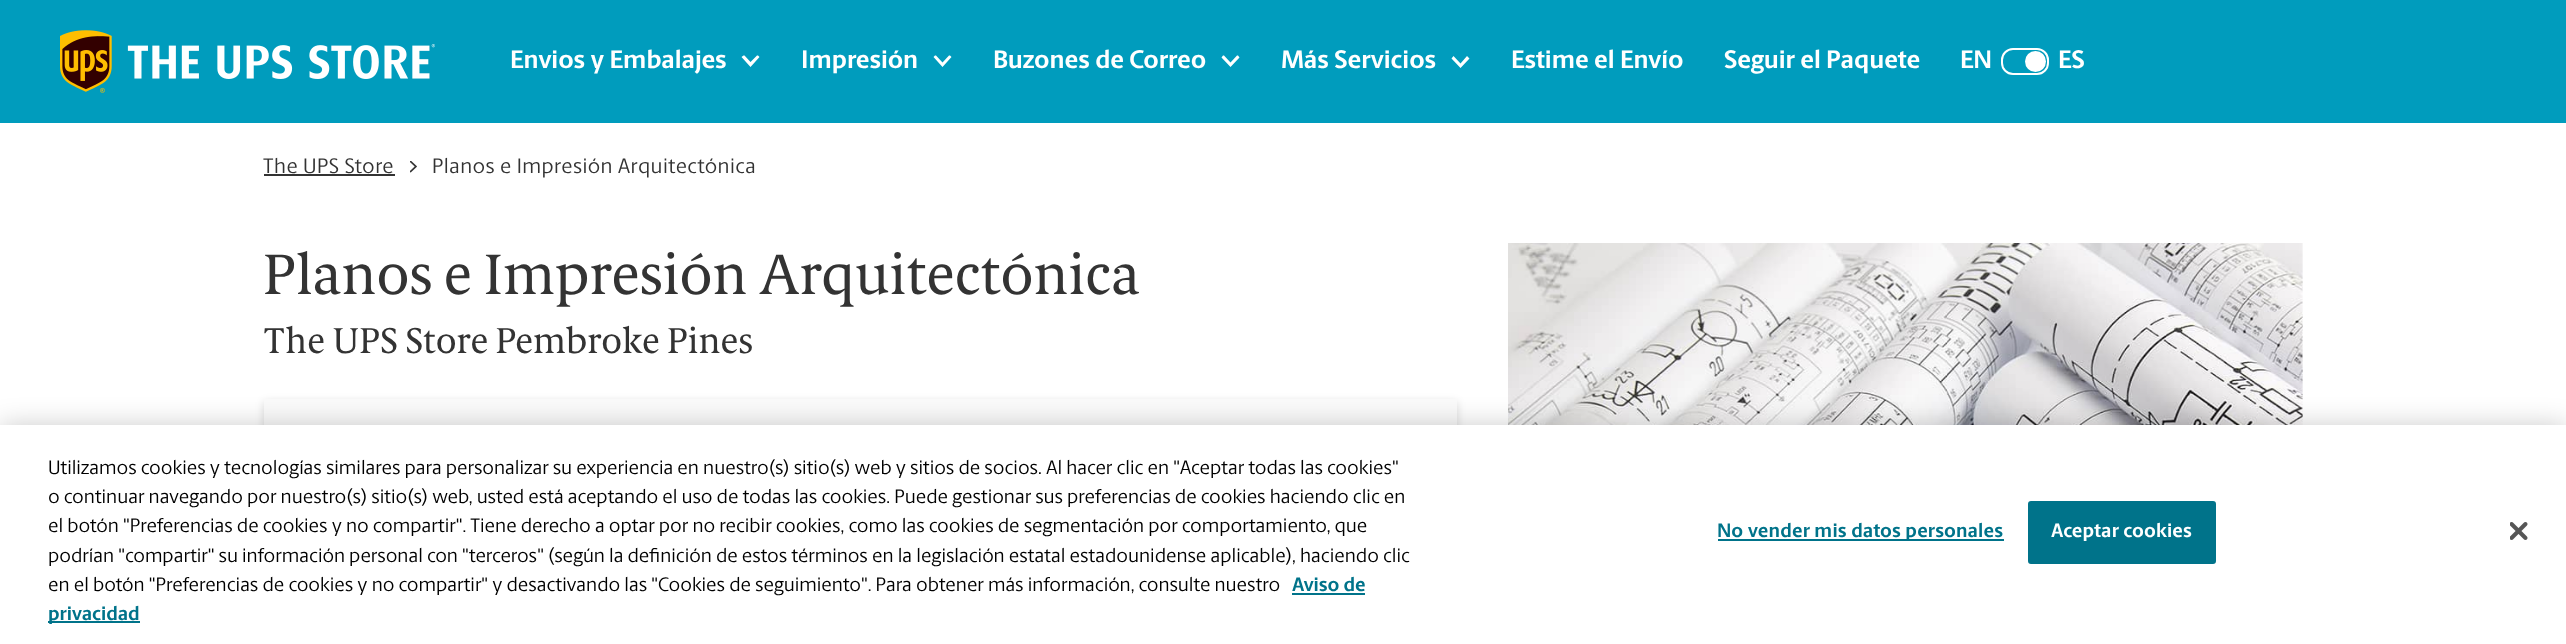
<!DOCTYPE html>
<meta charset="utf-8">
<style>body { margin: 0 } canvas { display: block }</style>
<canvas id="canvas" width="2566" height="644"></canvas>
<script type="module">
  const canvas = document.getElementById("canvas");
  const g = canvas.getContext("2d");
  g.miterLimit = 4;
  g.fontKerning = "normal";
  function drawText(s, x, y, [font, color]) {
    g.font = font;
    g.fillStyle = color;
    g.fillText(s, x, y);
  }
  function fillBox(x, y, w, h, color) {
    g.fillStyle = color;
    g.fillRect(x, y, w, h);
  }
  async function drawPicture(src, x, y, w, h) {
    const img = new Image();
    img.src = src;
    await img.decode();
    g.drawImage(img, x, y, w, h);
  }

  const s1 = ["bold 25.5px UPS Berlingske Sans", "#FFFFFF"];
  const s2 = ["21px UPS Berlingske Sans", "#333333"];
  const s3 = ["57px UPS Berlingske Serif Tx", "#333333"];
  const s4 = ["36px UPS Berlingske Serif Tx", "#333333"];
  const s5 = ["19.5px UPS Berlingske Sans", "#000000"];
  const s6 = ["bold 19.5px UPS Berlingske Sans", "#00738A"];
  const s7 = ["bold 19.5px UPS Berlingske Sans", "#FFFFFF"];

  fillBox(0, 0, 2566, 644, "#FFFFFF");
  fillBox(0, 0, 2566, 123, "#009CBD");
  await drawPicture("pic1.png", 60, 30, 375, 63);
  drawText("Envios y Embalajes", 510, 68, s1);
  g.beginPath();
  g.moveTo(744.5, 55.5);
  g.lineTo(750.5, 62);
  g.lineTo(757, 55.5);
  g.lineTo(758, 55.5);
  g.lineTo(759.5, 57);
  g.lineTo(750.5, 67);
  g.lineTo(741.5, 57);
  g.lineTo(743.5, 55.5);
  g.closePath();
  g.fill();
  drawText("Impresión", 801, 68, s1);
  g.beginPath();
  g.moveTo(936, 55.5);
  g.lineTo(942.5, 62.5);
  g.lineTo(949, 55.5);
  g.lineTo(950, 55.5);
  g.lineTo(951.5, 57);
  g.lineTo(942.5, 67);
  g.lineTo(933.5, 57);
  g.lineTo(935, 55.5);
  g.closePath();
  g.fill();
  drawText("Buzones de Correo", 993, 68, s1);
  g.beginPath();
  g.moveTo(1224, 55.5);
  g.lineTo(1230.5, 62.5);
  g.lineTo(1237, 55.5);
  g.lineTo(1238, 55.5);
  g.lineTo(1239.5, 57.5);
  g.lineTo(1230.5, 67);
  g.lineTo(1221.5, 57.5);
  g.lineTo(1223, 55.5);
  g.closePath();
  g.fill();
  drawText("Más Servicios", 1281, 68, s1);
  g.beginPath();
  g.moveTo(1467, 56);
  g.lineTo(1469.5, 58.5);
  g.lineTo(1460.5, 68);
  g.lineTo(1451.5, 58.5);
  g.lineTo(1453.5, 56);
  g.lineTo(1460.5, 63.5);
  g.closePath();
  g.fill("evenodd");
  drawText("Estime el Envío", 1511, 68, s1);
  drawText("Seguir el Paquete", 1724, 68, s1);
  drawText("EN", 1960, 68, s1);
  g.beginPath();
  g.roundRect(2002, 49, 46, 25, 11);
  g.strokeStyle = "#FFFFFF";
  g.lineWidth = 2;
  g.stroke();
  g.beginPath();
  g.arc(2035.5, 61.5, 10.5, 0, Math.PI * 2);
  g.fill();
  drawText("ES", 2058, 68, s1);
  g.letterSpacing = "0.45px";
  drawText("The UPS Store", 263, 173, s2);
  fillBox(264, 174, 131, 2, "#333333");
  await drawPicture("pic2.png", 410, 161, 7, 12);
  drawText("Planos e Impresión Arquitectónica", 432, 173, s2);
  g.letterSpacing = "0px";
  drawText("Planos e Impresión Arquitectónica", 263, 294, s3);
  drawText("The UPS Store Pembroke Pines", 263, 353, s4);
  g.fillStyle = "rgba(0, 0, 0, 0.15)";
  g.filter = "blur(4.5px)";
  g.beginPath();
  g.rect(264, 402, 1193, 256);
  g.fill();
  g.filter = "none";
  fillBox(264, 399, 1193, 26, "#FAFAFA");
  await drawPicture("pic3.png", 1508, 243, 795, 182);
  g.fillStyle = "rgba(0, 0, 0, 0.2)";
  g.filter = "blur(13.5px)";
  g.beginPath();
  g.rect(0, 425, 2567, 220);
  g.fill();
  g.filter = "none";
  fillBox(0, 425, 2566, 219, "#FFFFFF");
  drawText("Utilizamos cookies y tecnologías similares para personalizar su experiencia en nuestro(s) sitio(s) web y sitios de socios. Al hacer clic en \"Aceptar todas las cookies\"", 48, 474, s5);
  drawText("o continuar navegando por nuestro(s) sitio(s) web, usted está aceptando el uso de todas las cookies. Puede gestionar sus preferencias de cookies haciendo clic en", 48, 503, s5);
  drawText("el botón \"Preferencias de cookies y no compartir\". Tiene derecho a optar por no recibir cookies, como las cookies de segmentación por comportamiento, que", 48, 532, s5);
  drawText("podrían \"compartir\" su información personal con \"terceros\" (según la definición de estos términos en la legislación estatal estadounidense aplicable), haciendo clic", 48, 562, s5);
  drawText("en el botón \"Preferencias de cookies y no compartir\" y desactivando las \"Cookies de seguimiento\". Para obtener más información, consulte nuestro", 48, 591, s5);
  drawText("Aviso de", 1292, 591, s6);
  fillBox(1292, 593, 73, 2, "#00738A");
  fillBox(48, 621, 92, 2, "#00738A");
  drawText("privacidad", 48, 620, s6);
  fillBox(1718, 539, 286, 2, "#00738A");
  g.letterSpacing = "0.2px";
  drawText("No vender mis datos personales", 1717, 537, s6);
  g.beginPath();
  g.roundRect(2029, 502, 186, 61, 2);
  g.fill();
  g.strokeStyle = "#00738A";
  g.stroke();
  drawText("Aceptar cookies", 2051, 537, s7);
  await drawPicture("pic4.png", 2510, 522, 18, 18);
</script>
